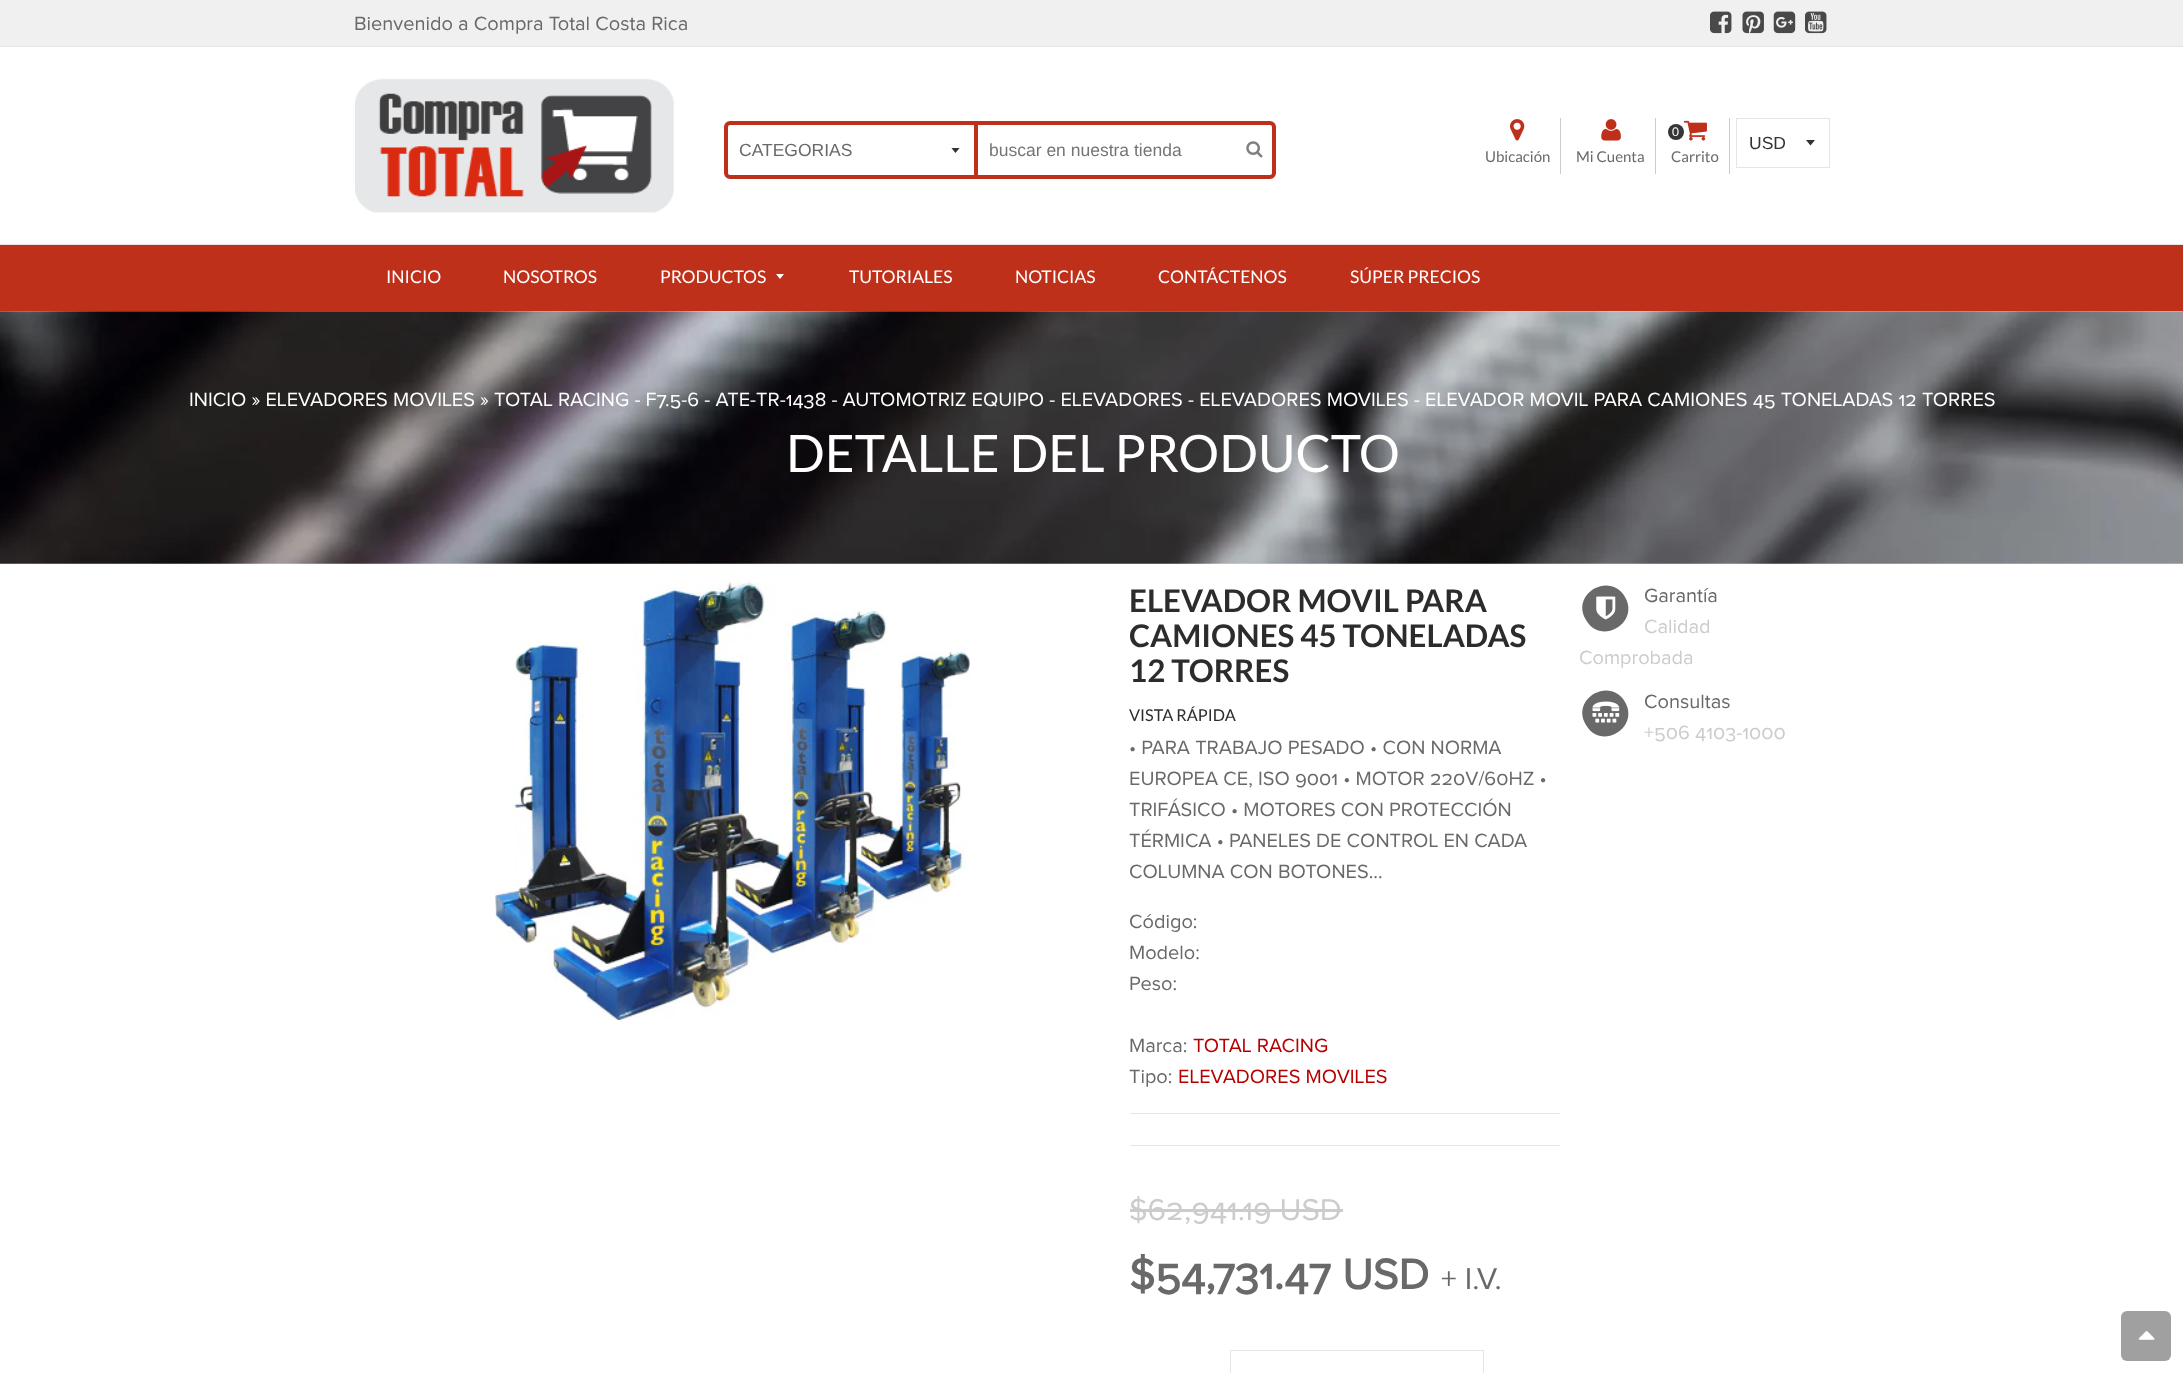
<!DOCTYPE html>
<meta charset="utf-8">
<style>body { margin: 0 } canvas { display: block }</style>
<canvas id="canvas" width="2183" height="1373"></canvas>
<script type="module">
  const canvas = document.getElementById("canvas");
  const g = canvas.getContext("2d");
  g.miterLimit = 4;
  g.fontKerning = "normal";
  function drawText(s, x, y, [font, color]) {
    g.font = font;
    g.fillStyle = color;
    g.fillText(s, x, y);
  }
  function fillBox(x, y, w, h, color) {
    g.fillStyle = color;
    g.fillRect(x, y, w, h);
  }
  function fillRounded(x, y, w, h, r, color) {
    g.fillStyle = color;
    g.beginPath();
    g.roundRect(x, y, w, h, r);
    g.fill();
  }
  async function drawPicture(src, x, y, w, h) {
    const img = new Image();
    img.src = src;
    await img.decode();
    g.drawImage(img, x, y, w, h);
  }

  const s1 = ["20px Proxima Nova", "#696969"];
  const s2 = ["17.5px Liberation Sans", "#696969"];
  const s3 = ["17.5px Liberation Sans", "#757575"];
  const s4 = ["12px Lato", "#FFFFFF"];
  const s5 = ["15px Lato", "#696969"];
  const s6 = ["17.5px Liberation Sans", "#333333"];
  const s7 = ["17.5px Lato", "#FFFFFF"];
  const s8 = ["20px Proxima Nova", "#FFFFFF"];
  const s9 = ["51.5px Lato", "#FFFFFF"];
  const s10 = ["bold 31.25px Lato", "#2C2C2C"];
  const s11 = ["16.25px Lato", "#2C2C2C"];
  const s12 = ["20px Proxima Nova", "#B50000"];
  const s13 = ["31.25px Proxima Nova", "#CCCCCC"];
  const s14 = ["bold 43.75px Proxima Nova", "#696969"];
  const s15 = ["31.25px Proxima Nova", "#696969"];
  const s16 = ["20px Proxima Nova", "#CCCCCC"];

  fillBox(0, 0, 2183, 1373, "#FFFFFF");
  fillBox(0, 0, 2183, 46, "#F0F0F0");
  drawText("Bienvenido a Compra Total Costa Rica", 354, 30, s1);
  await drawPicture("pic1.png", 1710, 11, 22, 23);
  await drawPicture("pic2.png", 1742, 11, 22, 23);
  await drawPicture("pic3.png", 1773, 11, 23, 23);
  await drawPicture("pic4.png", 1805, 11, 22, 23);
  fillBox(0, 46, 2183, 1, "#E5E5E5");
  await drawPicture("pic5.png", 355, 78, 319, 135);
  g.beginPath();
  g.roundRect(726, 123, 548, 54, 4);
  g.strokeStyle = "#BF301A";
  g.lineWidth = 4;
  g.stroke();
  g.save();
  g.beginPath();
  g.rect(951, 148, 10, 6);
  g.clip();
  g.fillStyle = "#333333";
  g.beginPath();
  g.moveTo(951, 147.5);
  g.lineTo(955.5, 153);
  g.lineTo(960, 147.5);
  g.closePath();
  g.fill();
  g.restore();
  fillBox(974, 125, 4, 50, "#BF301A");
  drawText("CATEGORIAS", 739, 156, s2);
  drawText("buscar en nuestra tienda", 989, 156, s3);
  await drawPicture("pic6.png", 1246, 141, 17, 17);
  fillBox(1729, 118, 1, 56, "#CCCCCC");
  await drawPicture("pic7.png", 1683, 120, 24, 21);
  g.fillStyle = "#363636";
  g.beginPath();
  g.arc(1676, 132, 8, 0, Math.PI * 2);
  g.fill();
  drawText("0", 1672, 136, s4);
  drawText("Carrito", 1671, 162, s5);
  g.fillStyle = "#333333";
  g.beginPath();
  g.moveTo(1806, 140);
  g.lineTo(1810.5, 145.5);
  g.lineTo(1815, 140);
  g.closePath();
  g.fill();
  g.strokeStyle = "#E5E5E5";
  g.lineWidth = 1;
  g.strokeRect(1736.5, 118.5, 93, 49);
  drawText("USD", 1749, 149, s6);
  fillBox(1560, 118, 1, 56, "#CCCCCC");
  await drawPicture("pic8.png", 1510, 119, 15, 22);
  drawText("Ubicación", 1485, 162, s5);
  fillBox(1655, 118, 1, 56, "#CCCCCC");
  await drawPicture("pic9.png", 1601, 119, 20, 22);
  drawText("Mi Cuenta", 1576, 162, s5);
  fillBox(0, 245, 2183, 66, "#BF301A");
  fillBox(0, 244, 2183, 1, "#E5E5E5");
  drawText("INICIO", 386, 283, s7);
  drawText("NOSOTROS", 503, 283, s7);
  drawText("PRODUCTOS", 660, 283, s7);
  g.beginPath();
  g.moveTo(776, 274);
  g.lineTo(780, 279);
  g.lineTo(784, 274);
  g.closePath();
  g.fill();
  drawText("TUTORIALES", 849, 283, s7);
  drawText("NOTICIAS", 1015, 283, s7);
  drawText("CONTÁCTENOS", 1158, 283, s7);
  drawText("SÚPER PRECIOS", 1350, 283, s7);
  await drawPicture("pic10.png", 0, 311, 2183, 253);
  drawText("INICIO » ELEVADORES MOVILES » TOTAL RACING - F7.5-6 - ATE-TR-1438 - AUTOMOTRIZ EQUIPO - ELEVADORES - ELEVADORES MOVILES - ELEVADOR MOVIL PARA CAMIONES 45 TONELADAS 12 TORRES", 189, 406, s8);
  drawText("DETALLE DEL PRODUCTO", 786, 472, s9);
  await drawPicture("pic11.png", 495, 582, 475, 438);
  drawText("ELEVADOR MOVIL PARA", 1129, 612, s10);
  drawText("CAMIONES 45 TONELADAS", 1129, 647, s10);
  drawText("12 TORRES", 1129, 682, s10);
  drawText("VISTA RÁPIDA", 1129, 721, s11);
  drawText("• PARA TRABAJO PESADO • CON NORMA", 1129, 754, s1);
  drawText("EUROPEA CE, ISO 9001 • MOTOR 220V/60HZ •", 1129, 785, s1);
  drawText("TRIFÁSICO • MOTORES CON PROTECCIÓN", 1129, 816, s1);
  drawText("TÉRMICA • PANELES DE CONTROL EN CADA", 1129, 847, s1);
  drawText("COLUMNA CON BOTONES...", 1129, 878, s1);
  drawText("Código:", 1129, 928, s1);
  drawText("Modelo:", 1129, 959, s1);
  drawText("Peso:", 1129, 990, s1);
  drawText("Marca:", 1129, 1052, s1);
  drawText("TOTAL RACING", 1193, 1052, s12);
  drawText("Tipo:", 1129, 1083, s1);
  drawText("ELEVADORES MOVILES", 1178, 1083, s12);
  fillBox(1130, 1113, 430, 1, "#E5E5E5");
  fillBox(1130, 1145, 430, 1, "#E5E5E5");
  drawText("$62,941.19 USD", 1129, 1220, s13);
  fillBox(1130, 1209, 213, 3, "#CCCCCC");
  drawText("$54,731.47 USD", 1129, 1289, s14);
  drawText("+ I.V.", 1441, 1289, s15);
  g.strokeRect(1230.5, 1350.5, 253, 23);
  g.beginPath();
  g.moveTo(1625, 597);
  g.bezierCurveTo(1640, 623, 1601, 646, 1586, 620);
  g.bezierCurveTo(1570, 594, 1610, 571, 1625, 597);
  g.closePath();
  g.fill();
  await drawPicture("pic12.png", 1596, 596, 20, 24);
  drawText("Garantía", 1644, 602, s1);
  drawText("Calidad", 1644, 633, s16);
  drawText("Comprobada", 1579, 664, s16);
  g.fillStyle = "#696969";
  g.beginPath();
  g.moveTo(1625, 702);
  g.bezierCurveTo(1640, 728, 1601, 751, 1586, 725);
  g.bezierCurveTo(1570, 699, 1610, 676, 1625, 702);
  g.closePath();
  g.fill();
  await drawPicture("pic13.png", 1592, 701, 28, 22);
  drawText("Consultas", 1644, 708, s1);
  drawText("+506 4103-1000", 1644, 739, s16);
  fillRounded(2121, 1311, 50, 50, 6, "#A0A0A0");
  await drawPicture("pic14.png", 2138, 1331, 17, 9);
</script>
